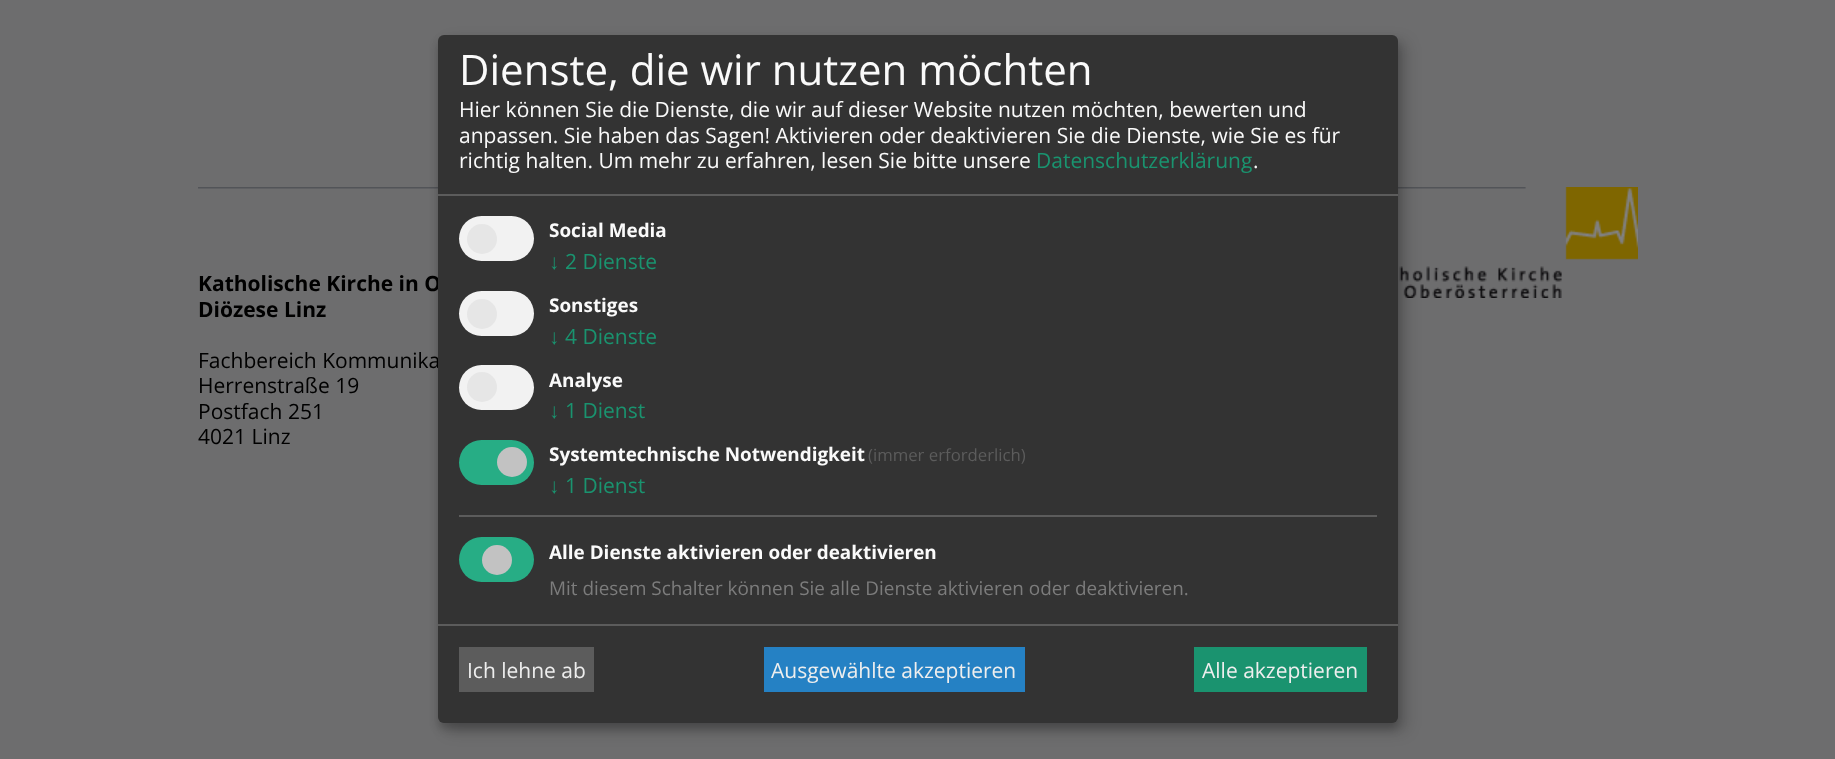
<!DOCTYPE html>
<meta charset="utf-8">
<style>body { margin: 0 } canvas { display: block }</style>
<canvas id="canvas" width="1835" height="759"></canvas>
<script type="module">
  const canvas = document.getElementById("canvas");
  const g = canvas.getContext("2d");
  g.miterLimit = 4;
  g.fontKerning = "normal";
  function drawText(s, x, y, [font, color]) {
    g.font = font;
    g.fillStyle = color;
    g.fillText(s, x, y);
  }
  function fillBox(x, y, w, h, color) {
    g.fillStyle = color;
    g.fillRect(x, y, w, h);
  }
  function fillRounded(x, y, w, h, r, color) {
    g.fillStyle = color;
    g.beginPath();
    g.roundRect(x, y, w, h, r);
    g.fill();
  }
  async function drawPicture(src, x, y, w, h) {
    const img = new Image();
    img.src = src;
    await img.decode();
    g.drawImage(img, x, y, w, h);
  }

  const s1 = ["bold 21px Open Sans", "#000000"];
  const s2 = ["21px Open Sans", "#000000"];
  const s3 = ["42px Open Sans", "#FAFAFA"];
  const s4 = ["21px Open Sans", "#FAFAFA"];
  const s5 = ["21px Open Sans", "#1A936F"];
  const s6 = ["bold 18.9px Open Sans", "#FAFAFA"];
  const s7 = ["21px Liberation Sans", "#1A936F"];
  const s8 = ["16.75px Open Sans", "#5C5C5C"];
  const s9 = ["18.9px Open Sans", "#7C7C7C"];
  const s10 = ["21px Open Sans", "#EEEEEE"];

  fillBox(0, 0, 1835, 759, "#6D6D6E");
  await drawPicture("pic1.png", 198, 187, 1440, 111);
  drawText("Katholische Kirche in O", 198, 291, s1);
  drawText("Diözese Linz", 198, 317, s1);
  drawText("Fachbereich Kommunika", 198, 368, s2);
  drawText("Herrenstraße 19", 198, 393, s2);
  drawText("Postfach 251", 198, 419, s2);
  drawText("4021 Linz", 198, 444, s2);
  g.fillStyle = "rgba(0, 0, 0, 0.19)";
  g.filter = "blur(7.5px)";
  g.beginPath();
  g.roundRect(446, 42, 960, 689, 6);
  g.fill();
  g.filter = "none";
  g.fillStyle = "rgba(0, 0, 0, 0.2)";
  g.filter = "blur(4.5px)";
  g.beginPath();
  g.roundRect(438, 41, 960, 688, 6);
  g.fill();
  g.filter = "none";
  fillRounded(438, 35, 960, 688, 6, "#333333");
  fillBox(438, 194, 960, 2, "#5C5C5C");
  drawText("Dienste, die wir nutzen möchten", 459, 85, s3);
  drawText("Hier können Sie die Dienste, die wir auf dieser Website nutzen möchten, bewerten und", 459, 117, s4);
  drawText("anpassen. Sie haben das Sagen! Aktivieren oder deaktivieren Sie die Dienste, wie Sie es für", 459, 143, s4);
  drawText("richtig halten. Um mehr zu erfahren, lesen Sie bitte unsere", 459, 168, s4);
  drawText("Datenschutzerklärung", 1036, 168, s5);
  drawText(".", 1253, 168, s4);
  fillRounded(459, 216, 75, 45, 22.5, "#F2F2F2");
  g.fillStyle = "#E6E6E6";
  g.beginPath();
  g.arc(482, 239, 15, 0, Math.PI * 2);
  g.fill();
  drawText("Social Media", 549, 237, s6);
  drawText("↓", 549, 269, s7);
  drawText("2 Dienste", 565, 269, s5);
  fillRounded(459, 291, 75, 45, 22.5, "#F2F2F2");
  g.fillStyle = "#E6E6E6";
  g.beginPath();
  g.arc(482, 314, 15, 0, Math.PI * 2);
  g.fill();
  drawText("Sonstiges", 549, 312, s6);
  drawText("↓", 549, 344, s7);
  drawText("4 Dienste", 565, 344, s5);
  fillRounded(459, 365, 75, 45, 22.5, "#F2F2F2");
  g.fillStyle = "#E6E6E6";
  g.beginPath();
  g.arc(482, 387, 15, 0, Math.PI * 2);
  g.fill();
  drawText("Analyse", 549, 387, s6);
  drawText("↓", 549, 418, s7);
  drawText("1 Dienst", 565, 418, s5);
  fillRounded(459, 440, 75, 45, 22.5, "#27AD85");
  g.fillStyle = "#C2C2C2";
  g.beginPath();
  g.arc(512, 462, 15, 0, Math.PI * 2);
  g.fill();
  drawText("Systemtechnische Notwendigkeit", 549, 461, s6);
  drawText("(immer erforderlich)", 868, 461, s8);
  drawText("↓", 549, 493, s7);
  drawText("1 Dienst", 565, 493, s5);
  fillBox(459, 515, 918, 2, "#5C5C5C");
  fillRounded(459, 537, 75, 45, 22.5, "#27AD85");
  g.fillStyle = "#C2C2C2";
  g.beginPath();
  g.arc(497, 560, 15, 0, Math.PI * 2);
  g.fill();
  drawText("Alle Dienste aktivieren oder deaktivieren", 549, 559, s6);
  drawText("Mit diesem Schalter können Sie alle Dienste aktivieren oder deaktivieren.", 549, 595, s9);
  fillBox(438, 624, 960, 2, "#5C5C5C");
  fillBox(459, 647, 135, 45, "#5C5C5C");
  drawText("Ich lehne ab", 467, 678, s10);
  fillBox(764, 647, 261, 45, "#2581C4");
  drawText("Ausgewählte akzeptieren", 771, 678, s10);
  fillBox(1194, 647, 173, 45, "#1A936F");
  drawText("Alle akzeptieren", 1202, 678, s10);
</script>
